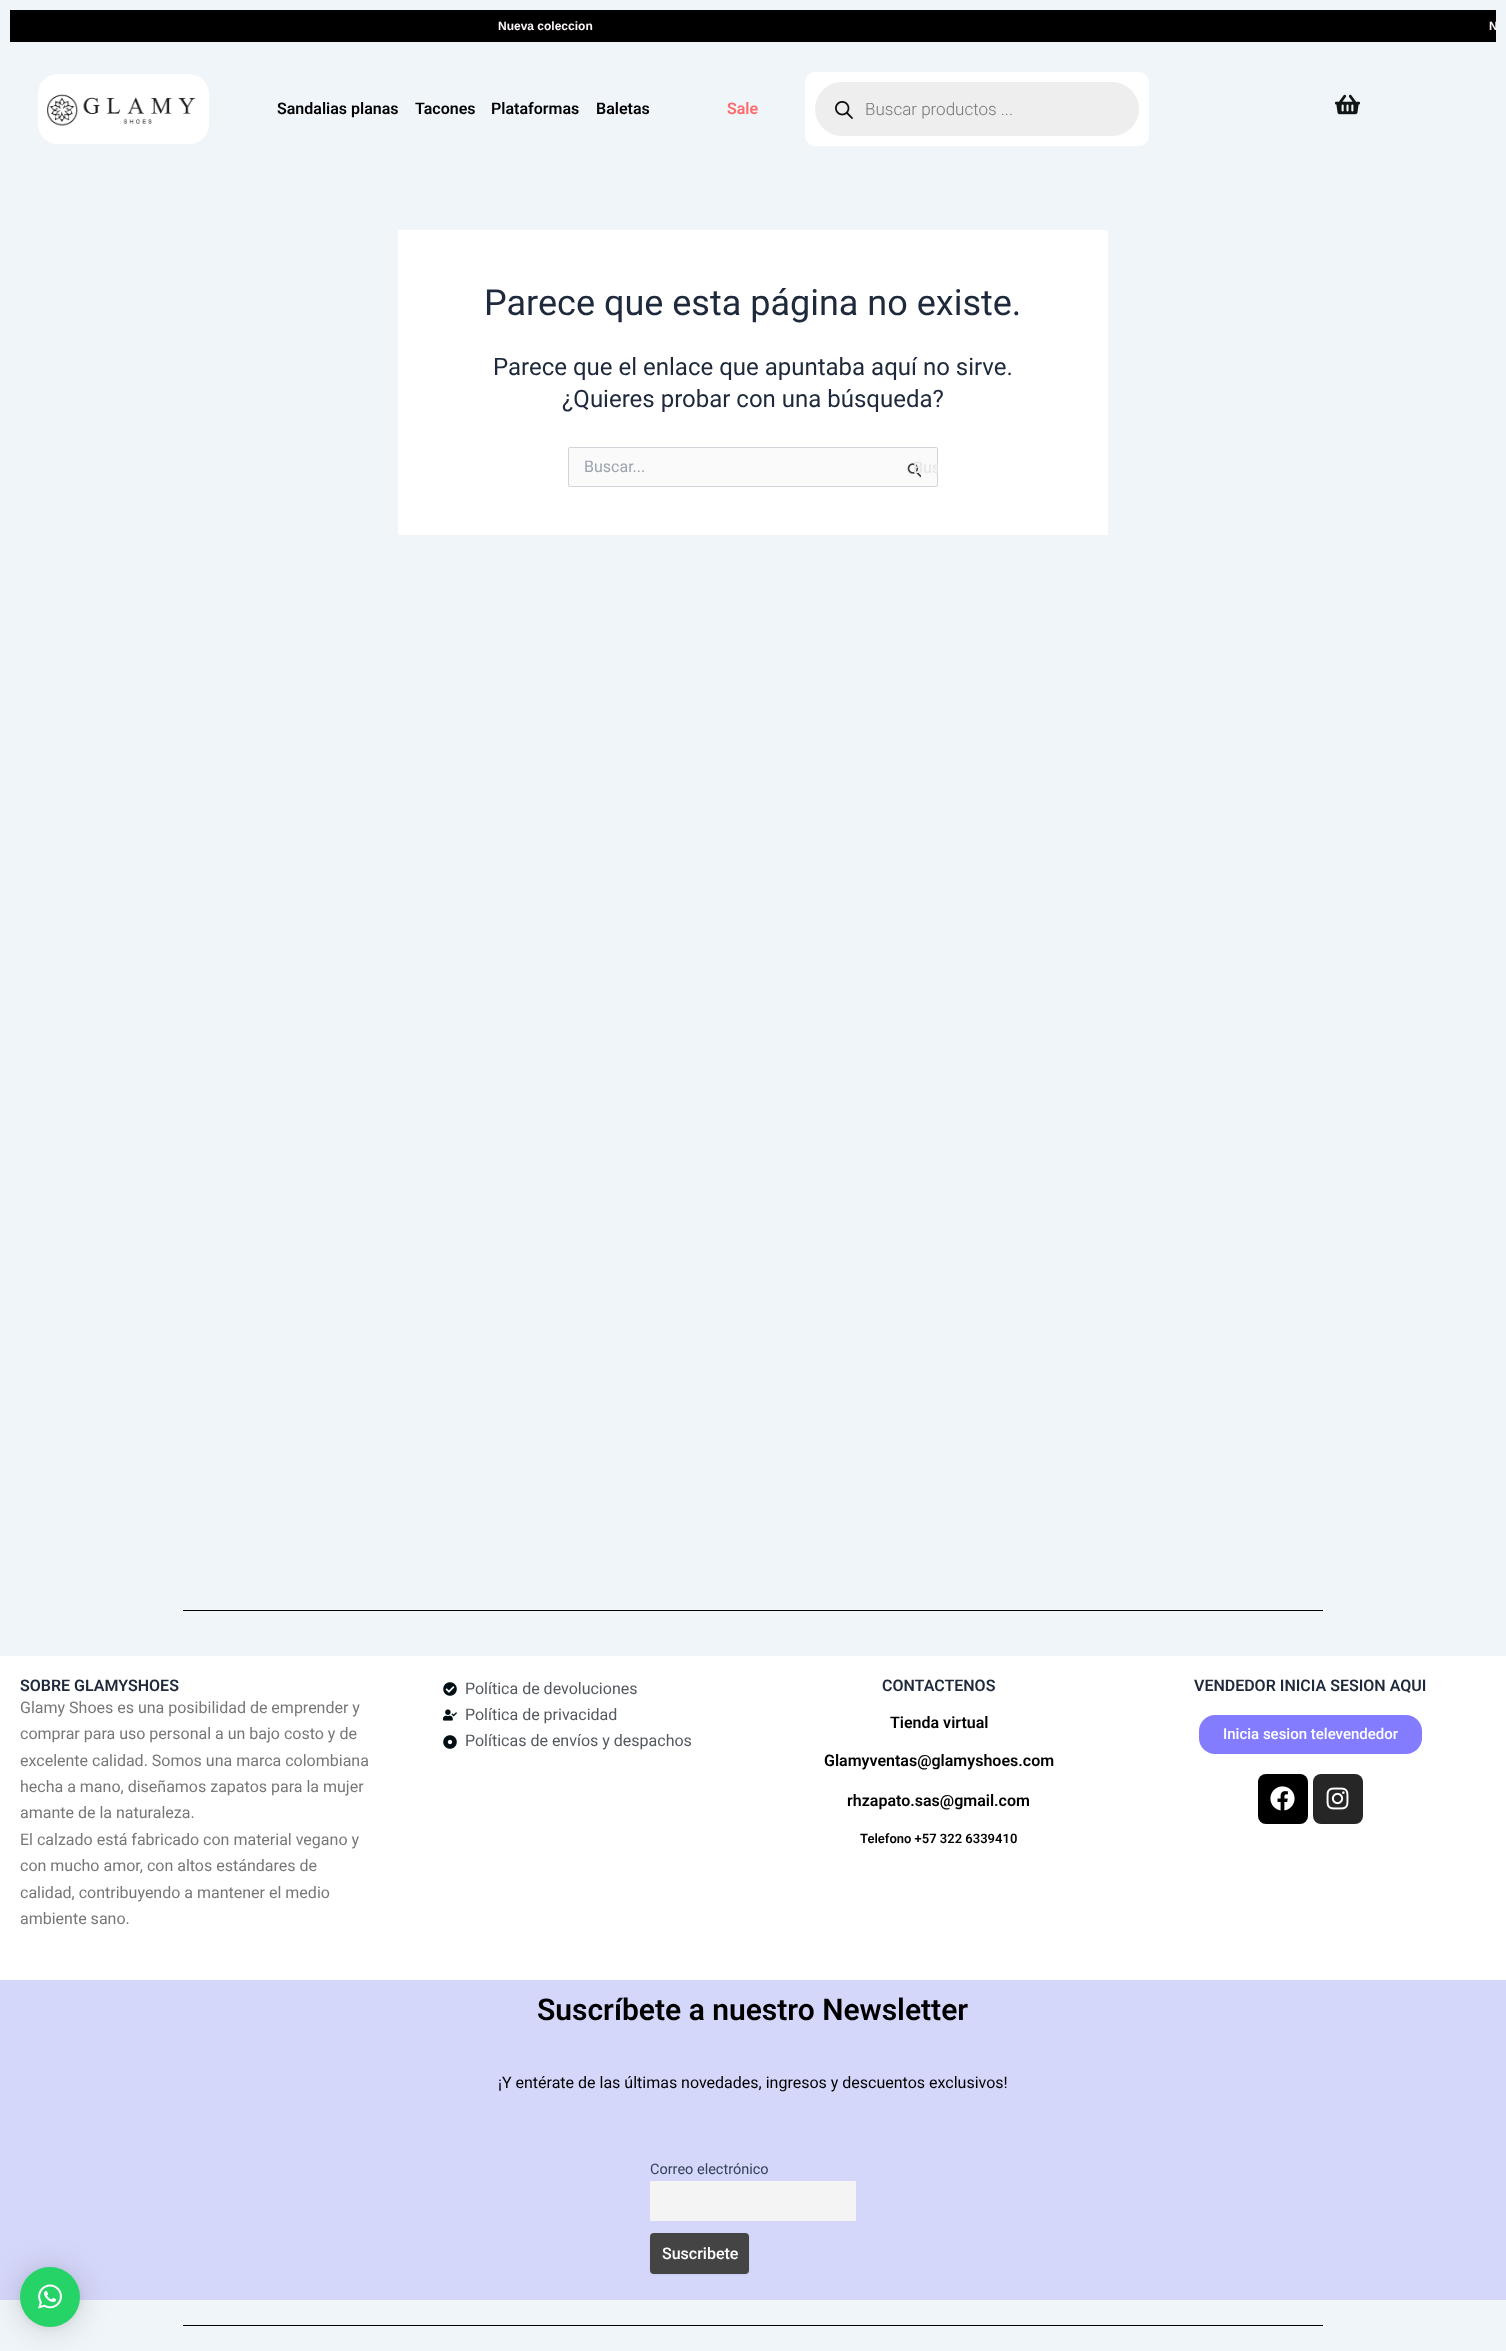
<!DOCTYPE html>
<meta charset="utf-8">
<style>body { margin: 0 } canvas { display: block }</style>
<canvas id="canvas" width="1506" height="2351"></canvas>
<script type="module">
  const canvas = document.getElementById("canvas");
  const g = canvas.getContext("2d");
  g.miterLimit = 4;
  g.fontKerning = "normal";
  function drawText(s, x, y, [font, color]) {
    g.font = font;
    g.fillStyle = color;
    g.fillText(s, x, y);
  }
  function fillBox(x, y, w, h, color) {
    g.fillStyle = color;
    g.fillRect(x, y, w, h);
  }
  function fillRounded(x, y, w, h, r, color) {
    g.fillStyle = color;
    g.beginPath();
    g.roundRect(x, y, w, h, r);
    g.fill();
  }
  async function drawPicture(src, x, y, w, h) {
    const img = new Image();
    img.src = src;
    await img.decode();
    g.drawImage(img, x, y, w, h);
  }

  const s1 = ["bold 12px Liberation Sans", "#FDF7F7"];
  const s2 = ["600 16px Roboto", "#000000"];
  const s3 = ["600 16px Roboto", "#FF6A6A"];
  const s4 = ["300 17px Roboto", "#777777"];
  const s5 = ["36px Roboto", "#1E293B"];
  const s6 = ["24px Roboto", "#1E293B"];
  const s7 = ["16px Roboto", "#9CA3AF"];
  const s8 = ["500 16px Roboto", "#E6E7E7"];
  const s9 = ["600 16px Roboto", "#1E293B"];
  const s10 = ["16px Roboto", "#777777"];
  const s11 = ["16px Roboto", "#54595F"];
  const s12 = ["600 13px Roboto", "#000000"];
  const s13 = ["500 15px Roboto", "#FFFFFF"];
  const s14 = ["600 30px Roboto", "#000000"];
  const s15 = ["16px Roboto", "#000000"];
  const s16 = ["14.5px Roboto", "#334155"];
  const s17 = ["500 16px Roboto", "#FFFFFF"];

  fillBox(0, 0, 1506, 2351, "#F0F5FA");
  fillBox(10, 10, 1486, 32, "#000000");
  drawText("Nueva coleccion", 498, 30, s1);
  g.save();
  g.beginPath();
  g.rect(1479, 10, 17, 32);
  g.clip();
  drawText("N", 1489, 30, s1);
  g.restore();
  await drawPicture("pic1.png", 38, 74, 171, 70);
  drawText("Sandalias planas", 277, 114, s2);
  drawText("Tacones", 415, 114, s2);
  drawText("Plataformas", 491, 114, s2);
  drawText("Baletas", 596, 114, s2);
  drawText("Sale", 727, 114, s3);
  fillRounded(805, 72, 344, 74, 10, "#FFFFFF");
  fillRounded(815, 82, 324, 54, 27, "#EEEEEE");
  await drawPicture("pic2.png", 835, 101, 18, 18);
  drawText("Buscar productos ...", 865, 115, s4);
  await drawPicture("pic3.png", 1335, 94, 25, 21);
  fillBox(398, 230, 710, 305, "#FFFFFF");
  drawText("Parece que esta página no existe.", 484, 315, s5);
  drawText("Parece que el enlace que apuntaba aquí no sirve.", 493, 375, s6);
  drawText("¿Quieres probar con una búsqueda?", 562, 407, s6);
  g.fillStyle = "#FAFAFA";
  g.beginPath();
  g.roundRect(568.5, 447.5, 369, 39, 1.5);
  g.fill();
  g.strokeStyle = "#D1D5DB";
  g.stroke();
  drawText("Buscar...", 584, 472, s7);
  await drawPicture("pic4.png", 907, 463, 14, 15);
  g.save();
  g.beginPath();
  g.roundRect(893, 447, 45, 42, 2);
  g.clip();
  drawText("Bus", 913, 473, s8);
  g.restore();
  fillBox(183, 1610, 1140, 1, "#000000");
  fillBox(0, 1656, 1506, 324, "#FFFFFF");
  drawText("SOBRE GLAMYSHOES", 20, 1691, s9);
  drawText("Glamy Shoes es una posibilidad de emprender y", 20, 1713, s10);
  drawText("comprar para uso personal a un bajo costo y de", 20, 1739, s10);
  drawText("excelente calidad. Somos una marca colombiana", 20, 1766, s10);
  drawText("hecha a mano, diseñamos zapatos para la mujer", 20, 1792, s10);
  drawText("amante de la naturaleza.", 20, 1818, s10);
  drawText("El calzado está fabricado con material vegano y", 20, 1845, s10);
  drawText("con mucho amor, con altos estándares de", 20, 1871, s10);
  drawText("calidad, contribuyendo a mantener el medio", 20, 1898, s10);
  drawText("ambiente sano.", 20, 1924, s10);
  await drawPicture("pic5.png", 443, 1682, 14, 14);
  drawText("Política de devoluciones", 465, 1694, s11);
  await drawPicture("pic6.png", 443, 1709, 14, 12);
  drawText("Política de privacidad", 465, 1720, s11);
  await drawPicture("pic7.png", 443, 1735, 14, 14);
  drawText("Políticas de envíos y despachos", 465, 1746, s11);
  drawText("CONTACTENOS", 882, 1691, s9);
  drawText("Tienda virtual", 890, 1728, s2);
  drawText("Glamyventas@glamyshoes.com", 824, 1766, s2);
  drawText("rhzapato.sas@gmail.com", 847, 1806, s2);
  drawText("Telefono +57 322 6339410", 860, 1843, s12);
  drawText("VENDEDOR INICIA SESION AQUI", 1194, 1691, s9);
  fillRounded(1199, 1715, 223, 39, 16, "#837CFF");
  drawText("Inicia sesion televendedor", 1223, 1739, s13);
  fillRounded(1258, 1774, 50, 50, 8, "#000000");
  await drawPicture("pic8.png", 1270, 1786, 25, 25);
  fillRounded(1313, 1774, 50, 50, 8, "#262626");
  await drawPicture("pic9.png", 1326, 1787, 23, 23);
  fillBox(0, 1980, 1506, 320, "#D5D7FA");
  drawText("Suscríbete a nuestro Newsletter", 537, 2020, s14);
  drawText("¡Y entérate de las últimas novedades, ingresos y descuentos exclusivos!", 498, 2088, s15);
  drawText("Correo electrónico", 650, 2174, s16);
  fillBox(650, 2181, 206, 40, "#F4F4F4");
  g.fillStyle = "rgba(0, 0, 0, 0.05)";
  g.filter = "blur(1px)";
  g.beginPath();
  g.roundRect(650, 2234, 99, 41, 4);
  g.fill();
  g.filter = "none";
  fillRounded(650, 2233, 99, 41, 4, "#444444");
  drawText("Suscribete", 662, 2259, s17);
  fillBox(183, 2325, 1140, 1, "#000000");
  g.fillStyle = "rgba(0, 0, 0, 0.16)";
  g.filter = "blur(16px)";
  g.beginPath();
  g.roundRect(20, 2269, 60, 60, 30);
  g.fill();
  g.filter = "none";
  g.fillStyle = "rgba(0, 0, 0, 0.06)";
  g.filter = "blur(3px)";
  g.beginPath();
  g.roundRect(20, 2268, 60, 60, 30);
  g.fill();
  g.filter = "none";
  g.fillStyle = "#25D366";
  g.beginPath();
  g.arc(50, 2297, 30, 0, Math.PI * 2);
  g.fill();
  await drawPicture("pic10.png", 38, 2284, 24, 25);
</script>
